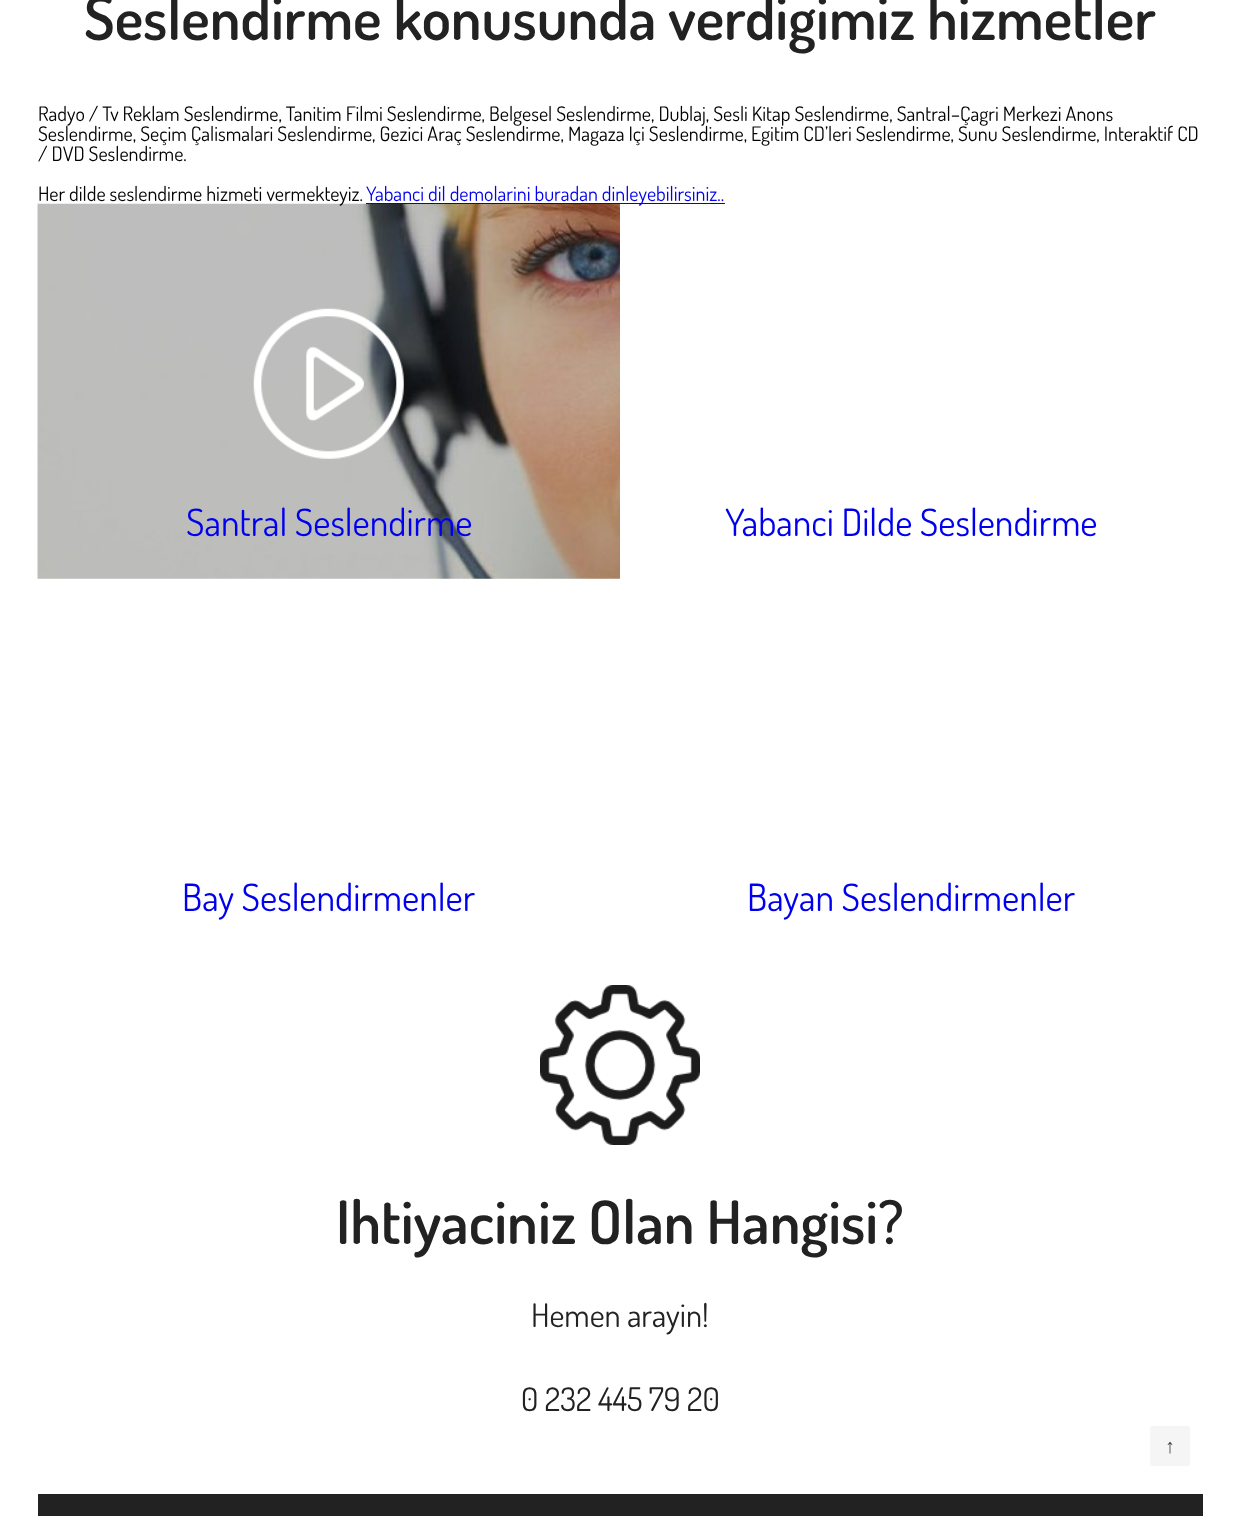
<!DOCTYPE html>
<meta charset="utf-8">
<style>body { margin: 0 } canvas { display: block }</style>
<canvas id="canvas" width="1240" height="1516"></canvas>
<script type="module">
  const canvas = document.getElementById("canvas");
  const g = canvas.getContext("2d");
  g.miterLimit = 4;
  g.fontKerning = "normal";
  function drawText(s, x, y, [font, color]) {
    g.font = font;
    g.fillStyle = color;
    g.fillText(s, x, y);
  }
  function fillBox(x, y, w, h, color) {
    g.fillStyle = color;
    g.fillRect(x, y, w, h);
  }
  function fillRounded(x, y, w, h, r, color) {
    g.fillStyle = color;
    g.beginPath();
    g.roundRect(x, y, w, h, r);
    g.fill();
  }
  async function drawPicture(src, x, y, w, h) {
    const img = new Image();
    img.src = src;
    await img.decode();
    g.drawImage(img, x, y, w, h);
  }

  const s1 = ["600 60px Dosis", "#222222"];
  const s2 = ["20px Dosis", "#000000"];
  const s3 = ["20px Dosis", "#0000EE"];
  const s4 = ["37.5px Dosis", "#0000EE"];
  const s5 = ["32.5px Dosis", "#222222"];
  const s6 = ["20px Liberation Serif", "#444444"];

  fillBox(0, 0, 1240, 1516, "#FFFFFF");
  drawText("Seslendirme konusunda verdigimiz hizmetler", 84, 40, s1);
  drawText("Radyo / Tv Reklam Seslendirme, Tanitim Filmi Seslendirme, Belgesel Seslendirme, Dublaj, Sesli Kitap Seslendirme, Santral–Çagri Merkezi Anons", 38, 121, s2);
  drawText("Seslendirme, Seçim Çalismalari Seslendirme, Gezici Araç Seslendirme, Magaza Içi Seslendirme, Egitim CD’leri Seslendirme, Sunu Seslendirme, Interaktif CD", 38, 141, s2);
  drawText("/ DVD Seslendirme.", 38, 161, s2);
  await drawPicture("pic1.png", 37, 203, 583, 376);
  drawText("Her dilde seslendirme hizmeti vermekteyiz.", 38, 201, s2);
  fillBox(366, 203, 359, 1, "#0000EE");
  drawText("Yabanci dil demolarini buradan dinleyebilirsiniz..", 366, 201, s3);
  await drawPicture("pic2.png", 253, 308, 151, 151);
  drawText("Santral Seslendirme", 186, 536, s4);
  drawText("Yabanci Dilde Seslendirme", 725, 536, s4);
  drawText("Bay Seslendirmenler", 182, 911, s4);
  drawText("Bayan Seslendirmenler", 747, 911, s4);
  await drawPicture("pic3.png", 540, 985, 160, 160);
  drawText("Ihtiyaciniz Olan Hangisi?", 336, 1244, s1);
  drawText("Hemen arayin!", 531, 1327, s5);
  drawText("0 232 445 79 20", 521, 1411, s5);
  fillRounded(1150, 1426, 40, 40, 2.5, "#F5F5F5");
  drawText("↑", 1165, 1453, s6);
  fillBox(38, 1494, 1165, 22, "#222222");
</script>
